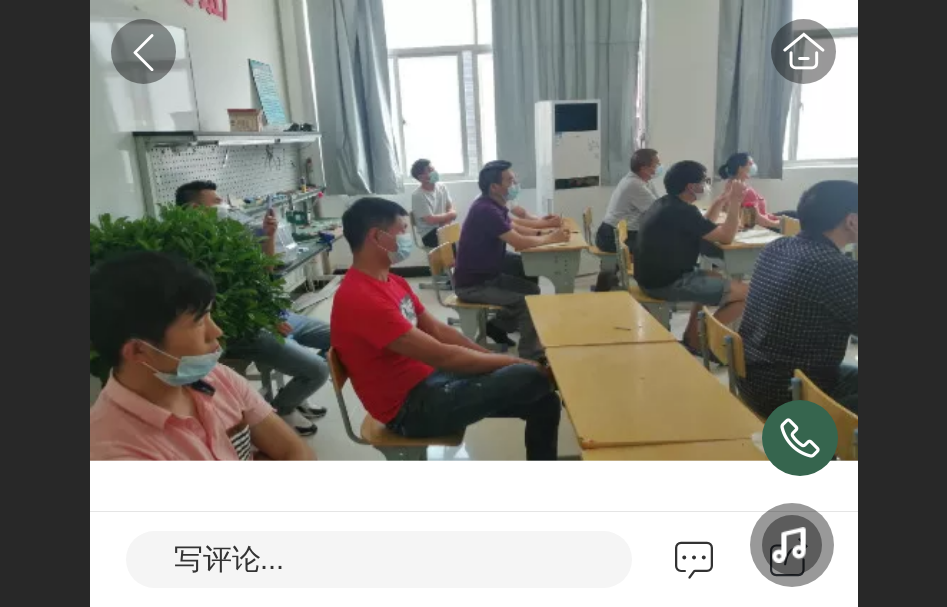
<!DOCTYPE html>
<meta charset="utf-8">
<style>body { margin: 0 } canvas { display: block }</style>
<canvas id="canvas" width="947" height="607"></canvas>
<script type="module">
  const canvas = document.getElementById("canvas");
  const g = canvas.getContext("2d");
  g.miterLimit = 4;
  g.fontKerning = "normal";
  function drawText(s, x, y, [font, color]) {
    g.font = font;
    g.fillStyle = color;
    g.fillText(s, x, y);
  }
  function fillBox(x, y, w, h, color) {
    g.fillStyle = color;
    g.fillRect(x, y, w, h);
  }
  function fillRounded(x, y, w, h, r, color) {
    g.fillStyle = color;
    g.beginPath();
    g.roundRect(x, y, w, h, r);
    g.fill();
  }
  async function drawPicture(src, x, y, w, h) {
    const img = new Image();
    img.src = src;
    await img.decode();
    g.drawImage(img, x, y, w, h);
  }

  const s1 = ["37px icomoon", "#FFFFFF"];
  const s2 = ["41px icomoon", "#FFFFFF"];
  const s3 = ["500 29px WenQuanYi Zen Hei", "#333333"];
  const s4 = ["29px Liberation Sans", "#333333"];
  const s5 = ["38px icomoon", "#333333"];
  const s6 = ["38px icomoon", "#3C414A"];

  fillBox(0, 0, 947, 607, "#FFFFFF");
  fillBox(0, 0, 90, 607, "#282828");
  await drawPicture("pic1.png", 90, 0, 768, 461);
  g.fillStyle = "rgba(0, 0, 0, 0.4)";
  g.beginPath();
  g.arc(143.5, 51.5, 32.5, 0, Math.PI * 2);
  g.fill();
  drawText("򰊔", 125, 68, s1);
  g.fillStyle = "rgba(0, 0, 0, 0.4)";
  g.beginPath();
  g.arc(803.5, 51.5, 32.5, 0, Math.PI * 2);
  g.fill();
  drawText("򰌓", 783, 68, s2);
  fillBox(90, 511, 768, 1, "#E5E5E5");
  fillRounded(126, 531, 506, 57, 28.5, "#F5F5F5");
  drawText("写评论", 174, 569, s3);
  drawText("...", 260, 569, s4);
  drawText("򰌇", 675, 576, s5);
  drawText("򰌐", 770, 573, s6);
  g.fillStyle = "#36654E";
  g.beginPath();
  g.arc(800, 438, 38, 0, Math.PI * 2);
  g.fill();
  await drawPicture("pic2.png", 780, 418, 40, 40);
  g.fillStyle = "rgba(0, 0, 0, 0.4)";
  g.beginPath();
  g.arc(792, 545, 42, 0, Math.PI * 2);
  g.fill();
  g.beginPath();
  g.arc(792, 545, 30, 0, Math.PI * 2);
  g.fill();
  await drawPicture("pic3.png", 772, 527, 34, 36);
  fillBox(858, 0, 89, 607, "#282828");
</script>
